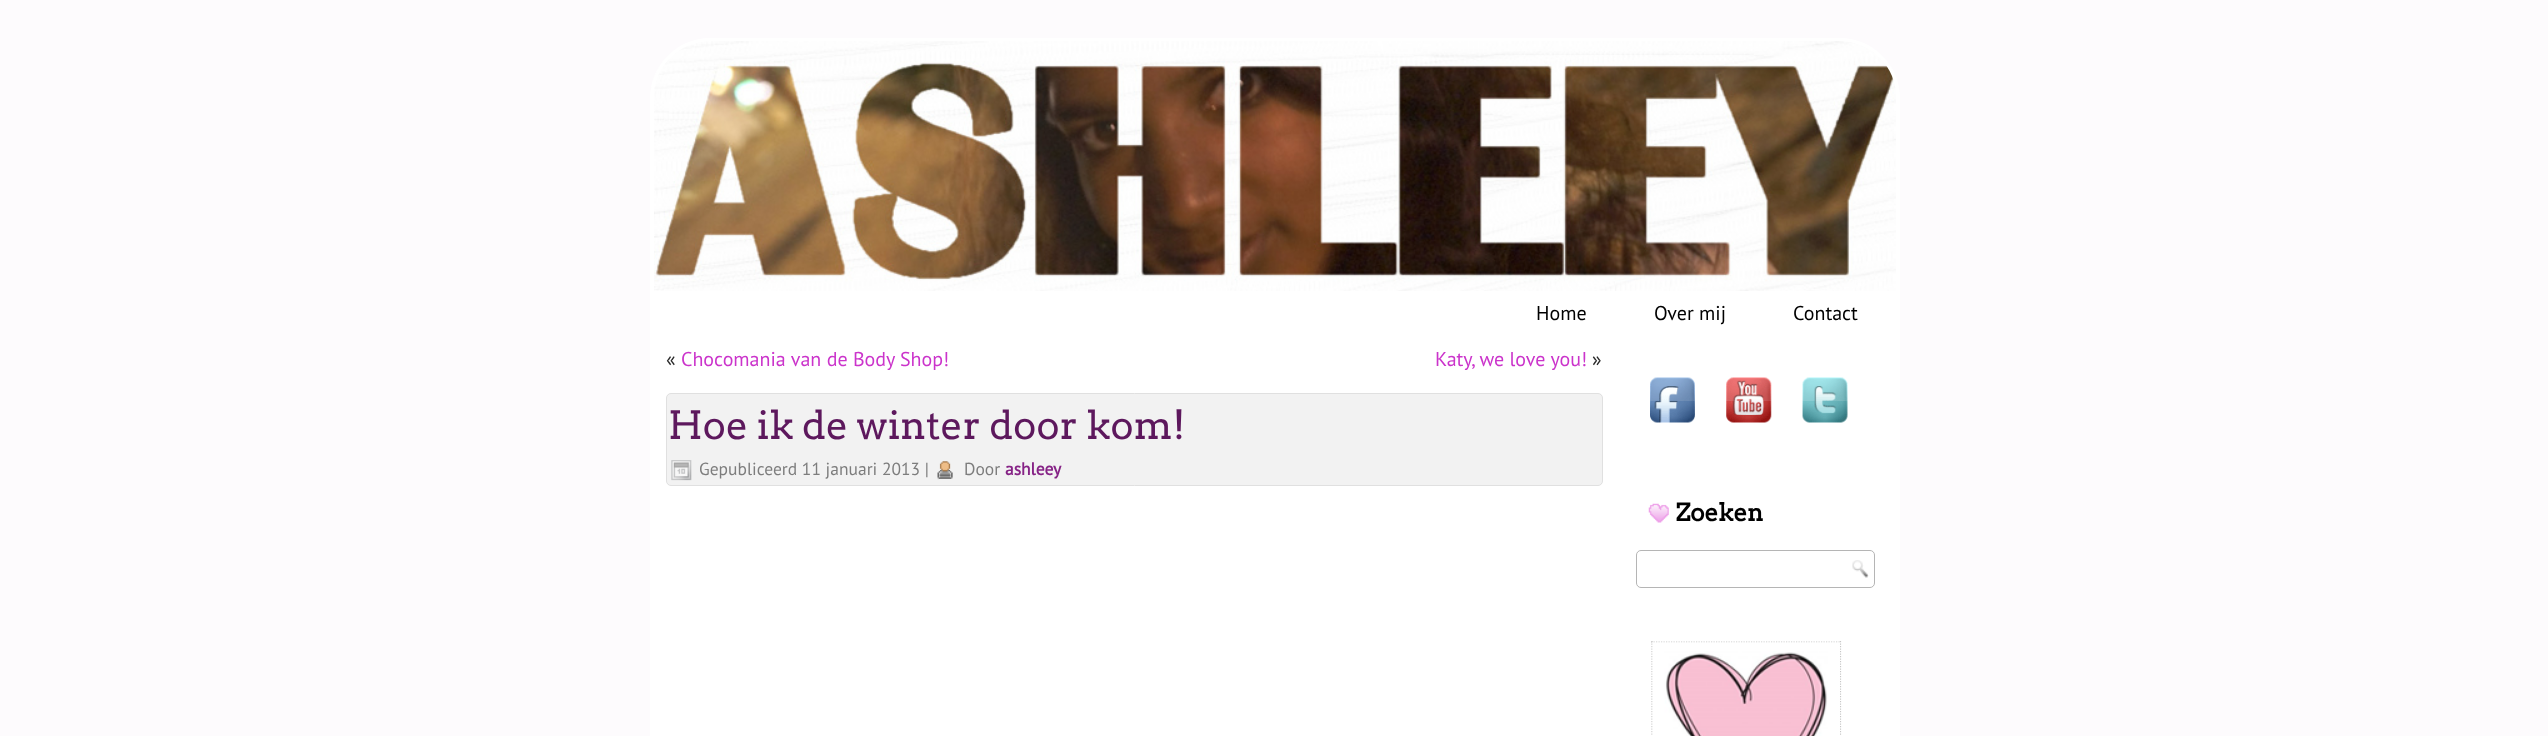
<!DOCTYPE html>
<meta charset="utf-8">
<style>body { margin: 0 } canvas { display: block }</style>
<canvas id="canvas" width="2548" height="736"></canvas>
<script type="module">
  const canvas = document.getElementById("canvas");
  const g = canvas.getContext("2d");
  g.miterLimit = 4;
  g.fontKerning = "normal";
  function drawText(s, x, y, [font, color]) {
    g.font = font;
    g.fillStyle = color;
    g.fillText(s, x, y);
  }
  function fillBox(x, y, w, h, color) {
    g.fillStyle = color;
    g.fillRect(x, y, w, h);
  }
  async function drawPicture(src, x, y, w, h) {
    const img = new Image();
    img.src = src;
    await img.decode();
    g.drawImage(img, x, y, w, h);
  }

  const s1 = ["20px PT Sans", "#000000"];
  const s2 = ["20px PT Sans", "#292929"];
  const s3 = ["20px PT Sans", "#CB34CB"];
  const s4 = ["38.75px Arvo", "#5D185D"];
  const s5 = ["17.5px PT Sans", "#7D7D7D"];
  const s6 = ["bold 17.5px PT Sans", "#862386"];
  const s7 = ["bold 24px Arvo", "#000000"];

  fillBox(0, 0, 2548, 736, "#FDFBFD");
  g.fillStyle = "#FFFFFF";
  g.beginPath();
  g.moveTo(710, 38);
  g.lineTo(1840, 38);
  g.bezierCurveTo(1873, 38, 1900, 65, 1900, 98);
  g.lineTo(1900, 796);
  g.lineTo(650, 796);
  g.lineTo(650, 98);
  g.bezierCurveTo(650, 65, 677, 38, 710, 38);
  g.closePath();
  g.fill();
  await drawPicture("pic1.png", 654, 41, 1242, 250);
  drawText("Home", 1536, 320, s1);
  drawText("Over mij", 1654, 320, s1);
  drawText("Contact", 1793, 320, s1);
  drawText("«", 666, 366, s2);
  drawText("Chocomania van de Body Shop!", 681, 366, s3);
  drawText("Katy, we love you!", 1435, 366, s3);
  drawText("»", 1592, 366, s2);
  g.fillStyle = "#F2F2F2";
  g.beginPath();
  g.roundRect(666.5, 393.5, 936, 92, 4.5);
  g.fill();
  g.strokeStyle = "#E0E0E0";
  g.stroke();
  drawText("Hoe ik de winter door kom!", 668, 439, s4);
  await drawPicture("pic2.png", 671, 460, 21, 21);
  drawText("Gepubliceerd 11 januari 2013 |", 699, 475, s5);
  await drawPicture("pic3.png", 937, 461, 16, 19);
  drawText("Door", 964, 475, s5);
  drawText("ashleey", 1005, 475, s6);
  await drawPicture("pic4.png", 1650, 377, 45, 46);
  await drawPicture("pic5.png", 1726, 377, 46, 46);
  await drawPicture("pic6.png", 1802, 377, 46, 46);
  await drawPicture("pic7.png", 1648, 503, 21, 20);
  drawText("Zoeken", 1676, 521, s7);
  g.beginPath();
  g.roundRect(1636.5, 550.5, 238, 37, 4.5);
  g.strokeStyle = "#B5B5B5";
  g.stroke();
  await drawPicture("pic8.png", 1852, 560, 17, 18);
  g.beginPath();
  g.moveTo(1651, 642);
  g.lineTo(1841, 642);
  g.strokeStyle = "#C7C7C7";
  g.lineWidth = 1.2;
  g.setLineDash([1.25, 1.25]);
  g.stroke();
  g.beginPath();
  g.moveTo(1652, 641);
  g.lineTo(1652, 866);
  g.stroke();
  g.beginPath();
  g.moveTo(1840.5, 641);
  g.lineTo(1840.5, 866);
  g.stroke();
  await drawPicture("pic9.png", 1652, 642, 188, 94);
</script>
